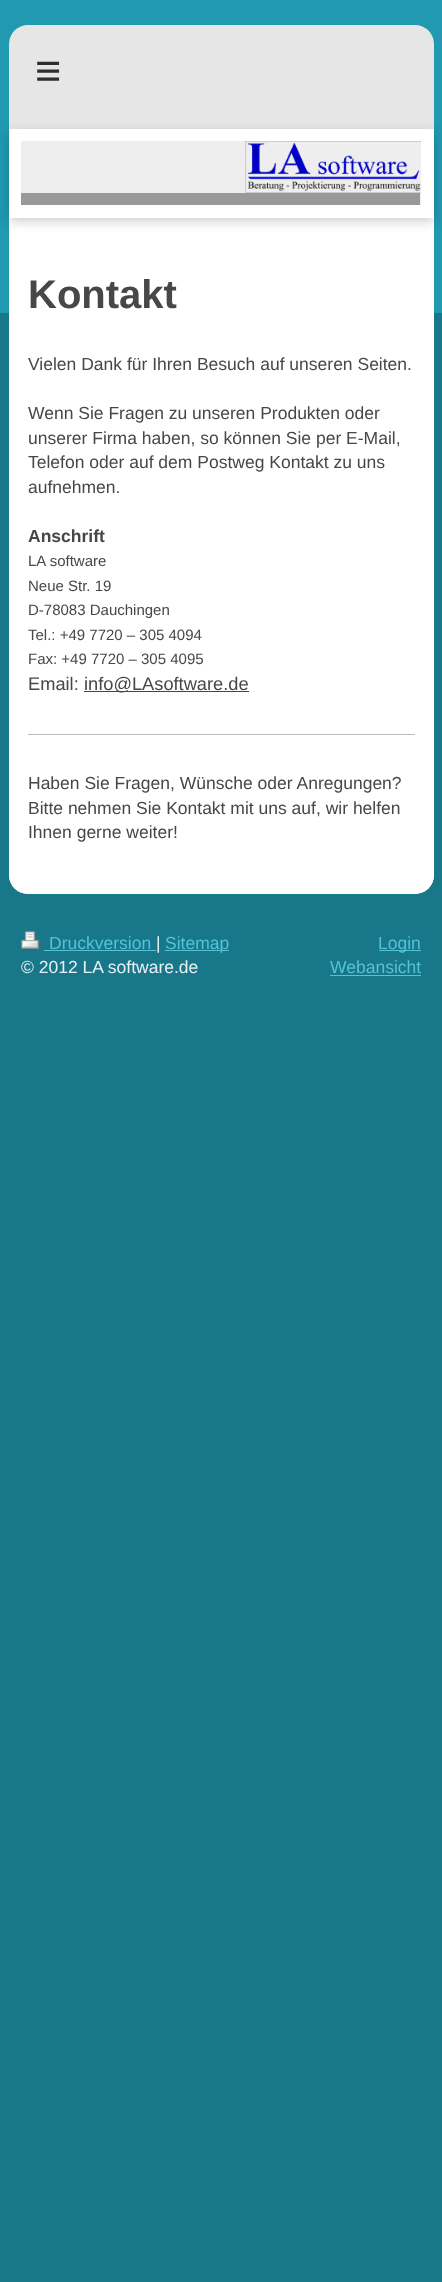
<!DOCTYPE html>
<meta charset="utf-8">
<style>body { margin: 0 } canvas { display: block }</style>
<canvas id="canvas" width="442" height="2282"></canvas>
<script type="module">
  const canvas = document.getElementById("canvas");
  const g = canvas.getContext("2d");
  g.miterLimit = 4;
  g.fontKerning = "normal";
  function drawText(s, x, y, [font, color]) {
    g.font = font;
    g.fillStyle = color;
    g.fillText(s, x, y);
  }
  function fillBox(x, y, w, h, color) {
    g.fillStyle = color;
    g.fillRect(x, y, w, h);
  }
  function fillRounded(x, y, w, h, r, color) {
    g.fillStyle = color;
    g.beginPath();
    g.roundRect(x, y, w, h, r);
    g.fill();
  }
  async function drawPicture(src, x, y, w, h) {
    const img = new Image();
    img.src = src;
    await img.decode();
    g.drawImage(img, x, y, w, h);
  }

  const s1 = ["45px Liberation Sans", "#2E2E2E"];
  const s2 = ["bold 40px Liberation Sans", "#474747"];
  const s3 = ["17.5px Liberation Sans", "#474747"];
  const s4 = ["bold 17.5px Liberation Sans", "#474747"];
  const s5 = ["15px Liberation Sans", "#474747"];
  const s6 = ["18.25px Liberation Sans", "#474747"];
  const s7 = ["17.5px Liberation Sans", "#54C2D9"];
  const s8 = ["17.5px Liberation Sans", "#E8F1F3"];

  fillBox(0, 0, 442, 2282, "#19778A");
  fillBox(0, 0, 442, 313, "#2099B1");
  fillRounded(9, 25, 425, 869, 19, "#E6E6E6");
  g.letterSpacing = "13px";
  drawText("≡", 35, 86, s1);
  g.fillStyle = "#FFFFFF";
  g.beginPath();
  g.roundRect(9, 218, 425, 676, [0, 0, 19, 19]);
  g.fill();
  g.fillStyle = "rgba(0, 0, 0, 0.2)";
  g.filter = "blur(6px)";
  g.beginPath();
  g.rect(9, 133, 425, 88);
  g.fill();
  g.filter = "none";
  g.strokeStyle = "#FFFFFF";
  g.lineWidth = 13;
  g.strokeRect(15.5, 135.5, 412, 76);
  fillBox(21, 141, 400, 64, "#EEEEEE");
  g.save();
  g.beginPath();
  g.rect(21, 141, 400, 64);
  g.clip();
  g.strokeStyle = "#CCCCCC";
  g.lineWidth = 1;
  g.strokeRect(245.5, 141.5, 177, 51);
  g.restore();
  await drawPicture("pic1.png", 247, 142, 174, 50);
  fillBox(21, 193, 399, 12, "#999999");
  g.letterSpacing = "0px";
  drawText("Kontakt", 28, 308, s2);
  drawText("Vielen Dank für Ihren Besuch auf unseren Seiten.", 28, 370, s3);
  drawText("Wenn Sie Fragen zu unseren Produkten oder", 28, 419, s3);
  drawText("unserer Firma haben, so können Sie per E-Mail,", 28, 444, s3);
  drawText("Telefon oder auf dem Postweg Kontakt zu uns", 28, 468, s3);
  drawText("aufnehmen.", 28, 493, s3);
  drawText("Anschrift", 28, 542, s4);
  drawText("LA software", 28, 566, s5);
  drawText("Neue Str. 19", 28, 591, s5);
  drawText("D-78083 Dauchingen", 28, 615, s5);
  drawText("Tel.: +49 7720 – 305 4094", 28, 640, s5);
  drawText("Fax: +49 7720 – 305 4095", 28, 664, s5);
  drawText("Email:", 28, 690, s6);
  fillBox(84, 691, 165, 1, "#474747");
  drawText("info@LAsoftware.de", 84, 690, s6);
  fillBox(28, 734, 387, 1, "#BABABA");
  drawText("Haben Sie Fragen, Wünsche oder Anregungen?", 28, 789, s3);
  drawText("Bitte nehmen Sie Kontakt mit uns auf, wir helfen", 28, 814, s3);
  drawText("Ihnen gerne weiter!", 28, 838, s3);
  await drawPicture("pic2.png", 21, 931, 18, 18);
  drawText("Druckversion", 49, 949, s7);
  fillBox(44, 950, 112, 1, "#54C2D9");
  drawText("|", 156, 949, s8);
  fillBox(165, 950, 64, 1, "#54C2D9");
  drawText("Sitemap", 165, 949, s7);
  drawText("© 2012 LA software.de", 21, 973, s8);
  fillBox(379, 950, 42, 1, "#54C2D9");
  drawText("Login", 378, 949, s7);
  drawText("Webansicht", 330, 973, s7);
  fillBox(330, 975, 91, 1, "#54C2D9");
</script>
